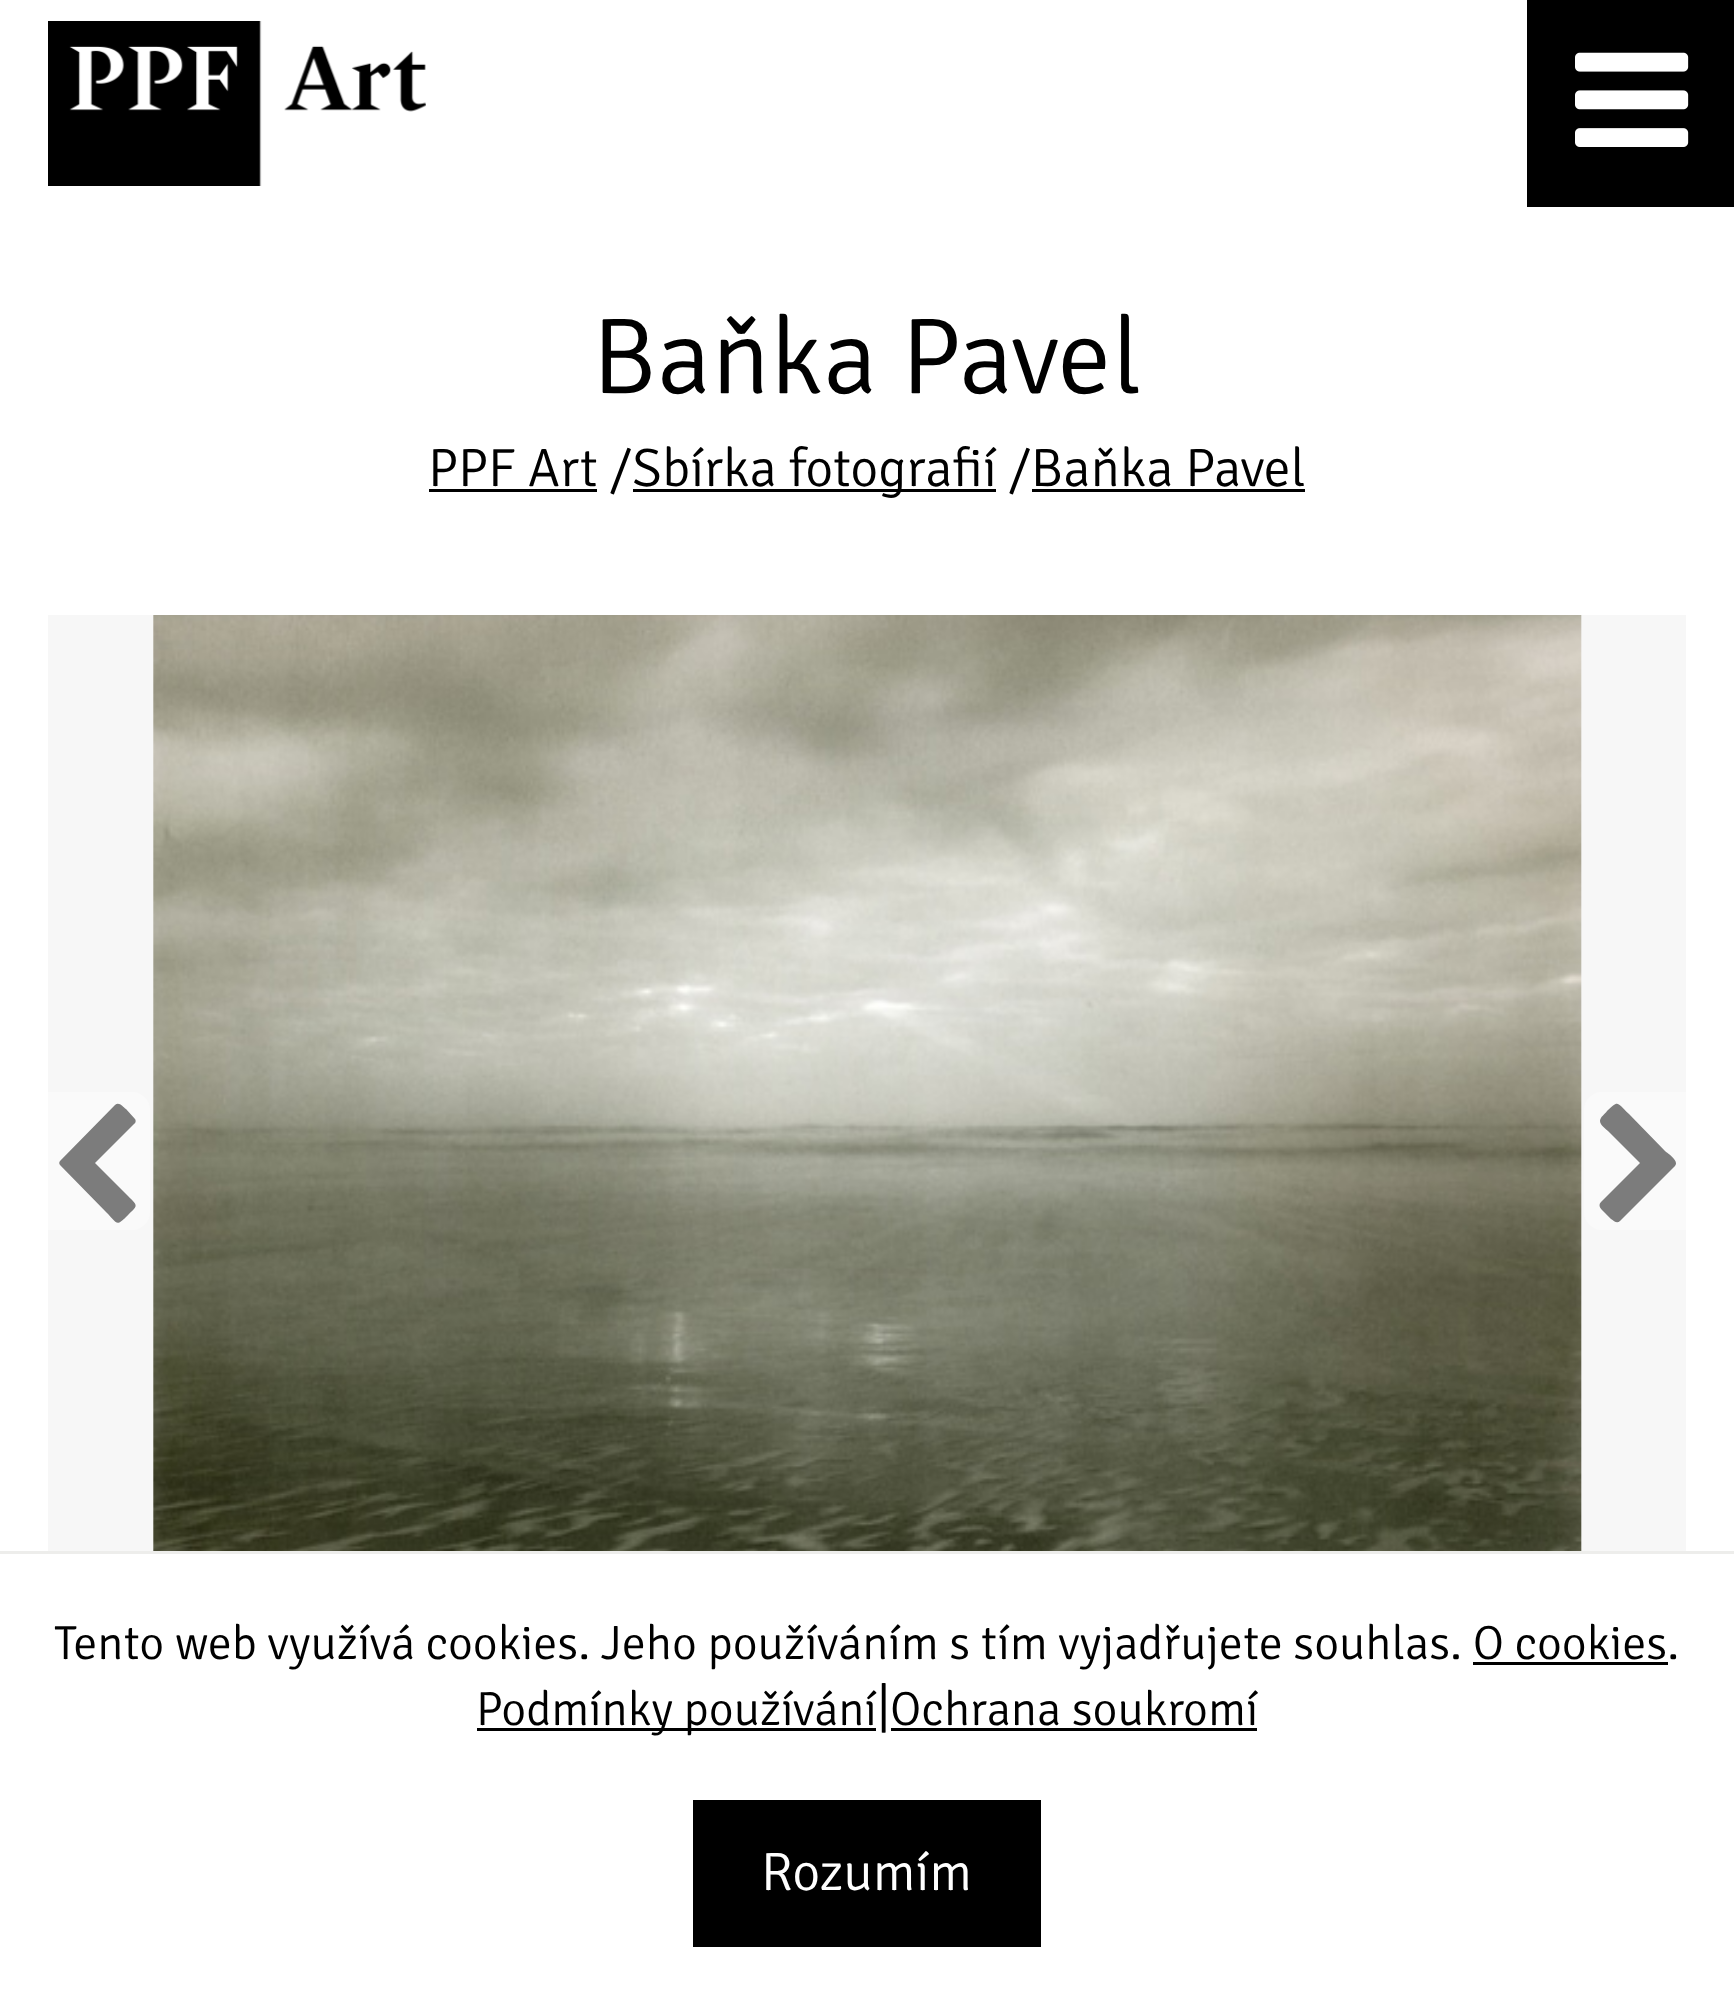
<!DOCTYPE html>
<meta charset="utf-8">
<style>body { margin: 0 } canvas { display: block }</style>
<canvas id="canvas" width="1734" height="2005"></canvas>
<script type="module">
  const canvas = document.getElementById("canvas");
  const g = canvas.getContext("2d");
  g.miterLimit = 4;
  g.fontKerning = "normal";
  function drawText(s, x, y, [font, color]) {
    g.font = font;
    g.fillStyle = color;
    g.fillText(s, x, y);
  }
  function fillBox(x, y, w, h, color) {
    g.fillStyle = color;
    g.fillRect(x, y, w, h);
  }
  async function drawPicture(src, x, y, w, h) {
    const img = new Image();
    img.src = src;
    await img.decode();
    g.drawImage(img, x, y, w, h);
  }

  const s1 = ["300 108px Signika", "#000000"];
  const s2 = ["300 54px Signika", "#000000"];
  const s3 = ["300 48px Signika", "#000000"];
  const s4 = ["300 54px Signika", "#FFFFFF"];

  fillBox(0, 0, 1734, 2005, "#FFFFFF");
  await drawPicture("pic1.png", 48, 21, 378, 165);
  fillBox(1527, 0, 207, 207, "#000000");
  await drawPicture("pic2.png", 1575, 52, 114, 95);
  drawText("Baňka Pavel", 592, 393, s1);
  fillBox(429, 489, 168, 3, "#000000");
  drawText("PPF Art /", 428, 486, s2);
  fillBox(633, 489, 363, 3, "#000000");
  drawText("Sbírka fotografií /Baňka Pavel", 632, 486, s2);
  fillBox(1032, 489, 273, 3, "#000000");
  fillBox(48, 615, 1638, 936, "#F7F7F7");
  await drawPicture("pic3.png", 153, 615, 1429, 936);
  g.fillStyle = "#FAFAFA";
  g.beginPath();
  g.roundRect(48, 1092, 102, 138, [0, 18, 18, 0]);
  g.fill();
  g.fillStyle = "#7C7C7C";
  g.beginPath();
  g.moveTo(134, 1124);
  g.lineTo(95, 1163);
  g.lineTo(128, 1196);
  g.bezierCurveTo(139, 1207, 138, 1205, 126, 1217);
  g.bezierCurveTo(116, 1227, 117, 1223, 106, 1212);
  g.lineTo(60, 1165);
  g.bezierCurveTo(59, 1164, 59, 1162, 60, 1161);
  g.lineTo(115, 1105);
  g.bezierCurveTo(119, 1101, 123, 1107, 126, 1109);
  g.lineTo(135, 1119);
  g.bezierCurveTo(136, 1120, 136, 1123, 134, 1124);
  g.closePath();
  g.fill();
  g.fillStyle = "#FAFAFA";
  g.beginPath();
  g.roundRect(1584, 1092, 102, 138, [18, 0, 0, 18]);
  g.fill();
  g.fillStyle = "#7C7C7C";
  g.beginPath();
  g.moveTo(1675, 1166);
  g.lineTo(1620, 1221);
  g.bezierCurveTo(1617, 1224, 1614, 1221, 1611, 1219);
  g.lineTo(1605, 1213);
  g.bezierCurveTo(1602, 1210, 1597, 1206, 1601, 1202);
  g.lineTo(1640, 1163);
  g.lineTo(1608, 1131);
  g.bezierCurveTo(1606, 1129, 1600, 1125, 1600, 1121);
  g.bezierCurveTo(1600, 1117, 1605, 1114, 1607, 1111);
  g.bezierCurveTo(1619, 1100, 1616, 1102, 1629, 1114);
  g.lineTo(1665, 1151);
  g.bezierCurveTo(1666, 1152, 1677, 1159, 1676, 1164);
  g.closePath();
  g.fill();
  fillBox(0, 1551, 1734, 3, "#EDEDEB");
  drawText("Tento web využívá cookies. Jeho používáním s tím vyjadřujete souhlas. O cookies.", 54, 1659, s3);
  fillBox(1473, 1662, 195, 3, "#000000");
  fillBox(477, 1728, 399, 3, "#000000");
  drawText("Podmínky používání", 476, 1725, s3);
  drawText("|", 877, 1725, s2);
  drawText("Ochrana soukromí", 890, 1725, s3);
  fillBox(891, 1728, 366, 3, "#000000");
  fillBox(693, 1800, 348, 147, "#000000");
  drawText("Rozumím", 761, 1890, s4);
</script>
